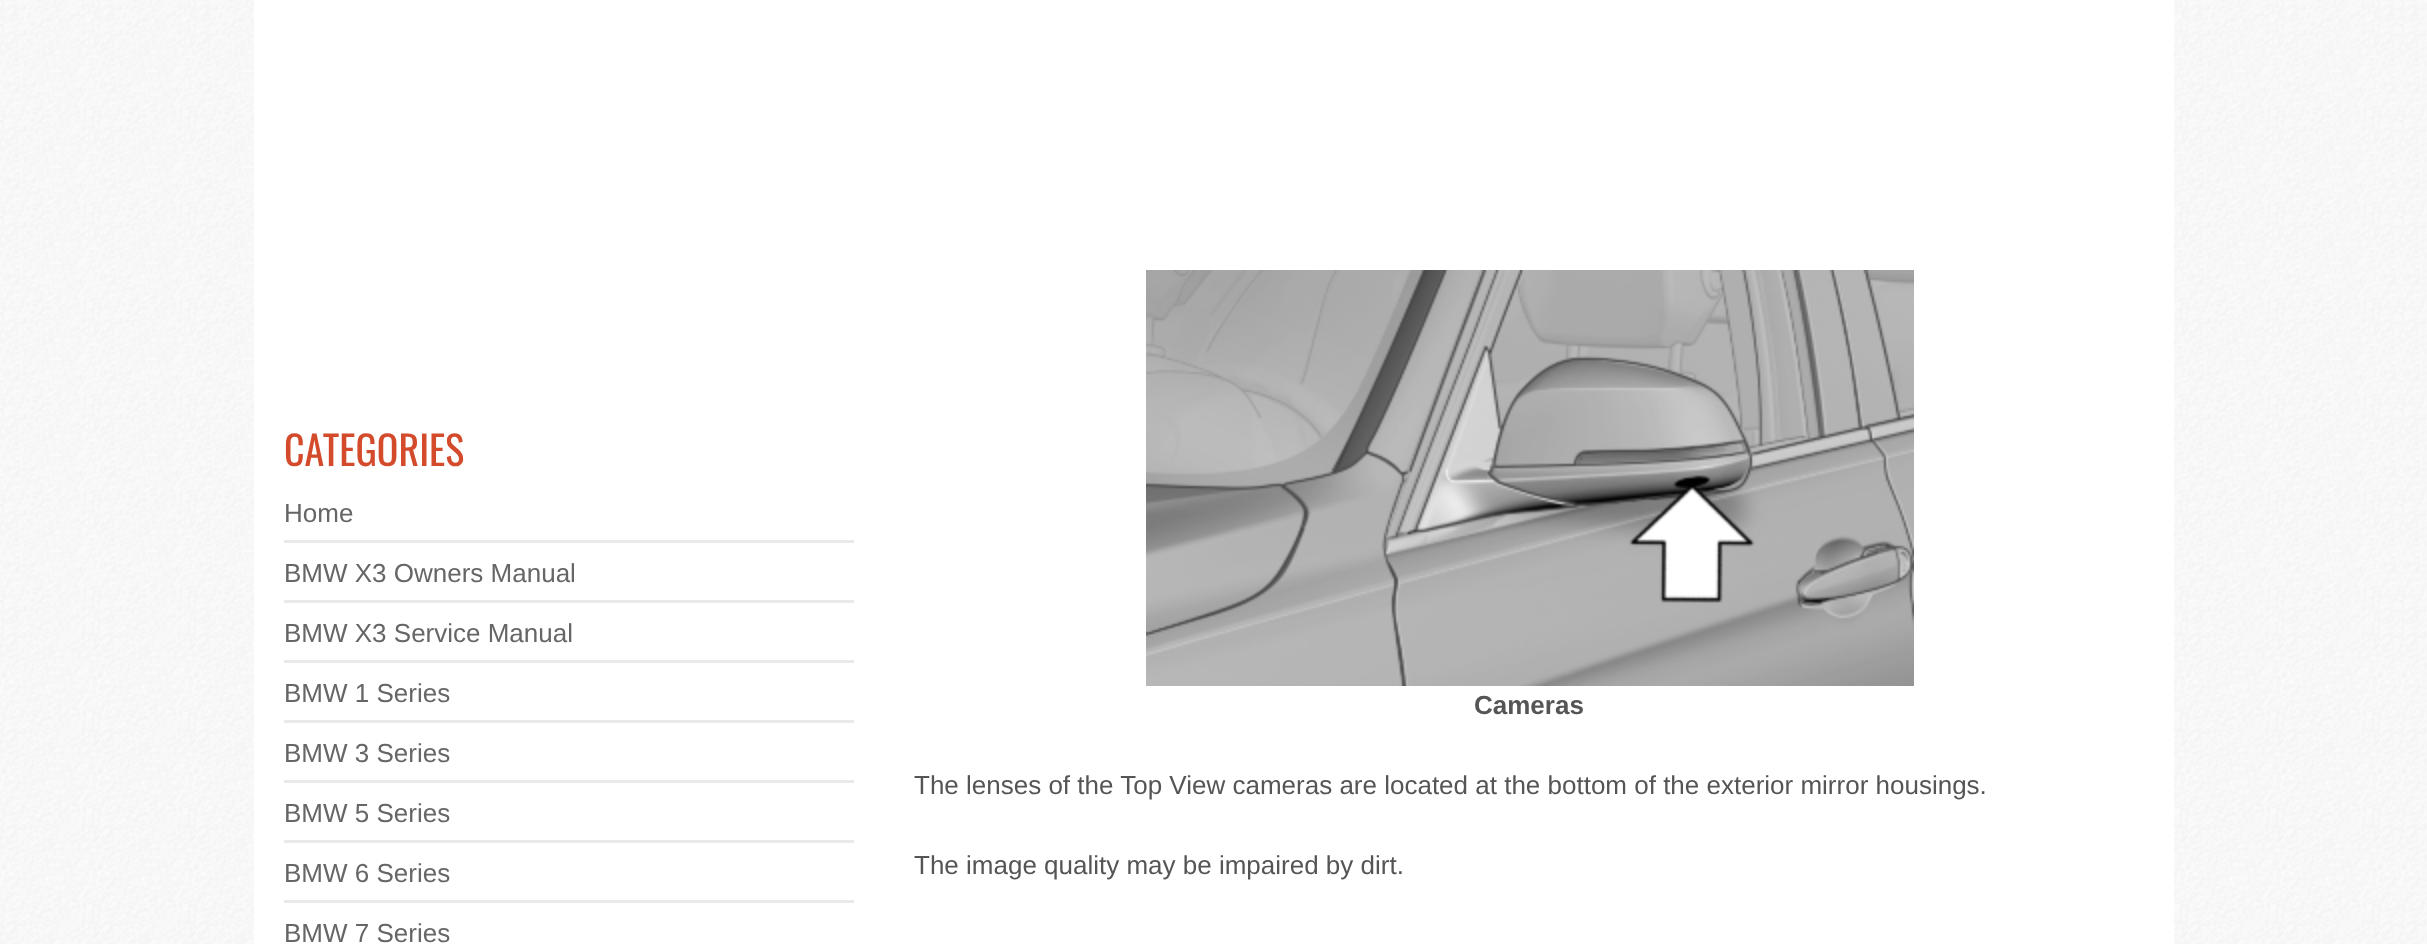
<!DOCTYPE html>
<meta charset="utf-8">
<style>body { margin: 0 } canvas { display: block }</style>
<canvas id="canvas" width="2427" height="944"></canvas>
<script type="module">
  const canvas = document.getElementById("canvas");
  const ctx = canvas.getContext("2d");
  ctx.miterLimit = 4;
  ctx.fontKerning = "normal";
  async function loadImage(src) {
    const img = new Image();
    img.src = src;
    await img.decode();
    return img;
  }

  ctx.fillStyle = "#ffffff";
  ctx.fillRect(0, 0, 2427, 944);
  ctx.drawImage(await loadImage("img1.png"), 0, 0, 2427, 944);
  ctx.fillRect(254, 0, 1920, 944);
  ctx.font = "40px Oswald";
  ctx.fillStyle = "#d44b2c";
  ctx.fillText("CATEGORIES", 284, 466);
  ctx.fillStyle = "#eaeaea";
  ctx.fillRect(284, 540, 570, 3);
  ctx.font = "26px Liberation Sans";
  ctx.fillStyle = "#666666";
  ctx.fillText("Home", 284, 522);
  ctx.fillStyle = "#eaeaea";
  ctx.fillRect(284, 600, 570, 3);
  ctx.fillStyle = "#666666";
  ctx.fillText("BMW X3 Owners Manual", 284, 582);
  ctx.fillStyle = "#eaeaea";
  ctx.fillRect(284, 660, 570, 3);
  ctx.fillStyle = "#666666";
  ctx.fillText("BMW X3 Service Manual", 284, 642);
  ctx.fillStyle = "#eaeaea";
  ctx.fillRect(284, 720, 570, 3);
  ctx.fillStyle = "#666666";
  ctx.fillText("BMW 1 Series", 284, 702);
  ctx.fillStyle = "#eaeaea";
  ctx.fillRect(284, 780, 570, 3);
  ctx.fillStyle = "#666666";
  ctx.fillText("BMW 3 Series", 284, 762);
  ctx.fillStyle = "#eaeaea";
  ctx.fillRect(284, 840, 570, 3);
  ctx.fillStyle = "#666666";
  ctx.fillText("BMW 5 Series", 284, 822);
  ctx.fillStyle = "#eaeaea";
  ctx.fillRect(284, 900, 570, 3);
  ctx.fillStyle = "#666666";
  ctx.fillText("BMW 6 Series", 284, 882);
  ctx.fillText("BMW 7 Series", 284, 942);
  ctx.drawImage(await loadImage("img2.png"), 1146, 270, 768, 416);
  ctx.font = "bold 26px Liberation Sans";
  ctx.fillStyle = "#555555";
  ctx.fillText("Cameras", 1474, 714);
  ctx.font = "26px Liberation Sans";
  ctx.fillText("The lenses of the Top View cameras are located at the bottom of the exterior mirror housings.", 914, 794);
  ctx.fillText("The image quality may be impaired by dirt.", 914, 874);
</script>
